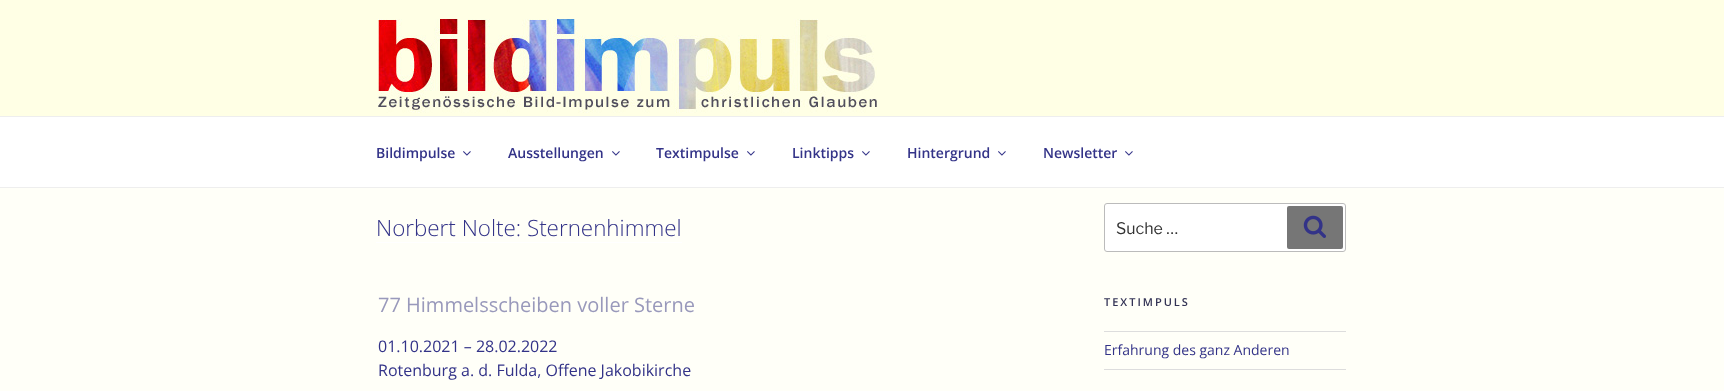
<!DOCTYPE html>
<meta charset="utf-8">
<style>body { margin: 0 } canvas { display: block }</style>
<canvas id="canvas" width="1724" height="391"></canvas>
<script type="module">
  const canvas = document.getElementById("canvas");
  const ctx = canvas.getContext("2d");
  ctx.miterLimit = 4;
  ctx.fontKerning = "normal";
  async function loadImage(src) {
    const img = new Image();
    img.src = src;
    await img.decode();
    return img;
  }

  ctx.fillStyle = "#ffffe5";
  ctx.fillRect(0, 0, 1724, 391);
  ctx.drawImage(await loadImage("img1.png"), 378, 19, 500, 94);
  ctx.fillStyle = "#ffffff";
  ctx.fillRect(0, 117, 1724, 70);
  ctx.fillStyle = "#eeeeee";
  ctx.fillRect(0, 116, 1724, 1);
  ctx.fillRect(0, 187, 1724, 1);
  ctx.font = "600 14px Open Sans";
  ctx.fillStyle = "#333388";
  ctx.fillText("Bildimpulse", 376, 158);
  ctx.drawImage(await loadImage("img2.png"), 463, 151, 8, 5);
  ctx.fillText("Ausstellungen", 508, 158);
  ctx.drawImage(await loadImage("img2.png"), 612, 151, 8, 5);
  ctx.fillText("Textimpulse", 656, 158);
  ctx.drawImage(await loadImage("img2.png"), 747, 151, 8, 5);
  ctx.fillText("Linktipps", 792, 158);
  ctx.drawImage(await loadImage("img2.png"), 862, 151, 8, 5);
  ctx.fillText("Hintergrund", 907, 158);
  ctx.drawImage(await loadImage("img2.png"), 998, 151, 8, 5);
  ctx.fillText("Newsletter", 1043, 158);
  ctx.drawImage(await loadImage("img2.png"), 1125, 151, 8, 5);
  ctx.fillStyle = "#fffff8";
  ctx.fillRect(0, 188, 1724, 203);
  ctx.font = "300 22.4px Open Sans";
  ctx.fillStyle = "#333388";
  ctx.fillText("Norbert Nolte: Sternenhimmel", 376, 236);
  ctx.fillStyle = "#ffffff";
  ctx.fillRect(376, 242, 306, 1);
  ctx.font = "20px Open Sans";
  ctx.fillStyle = "#9999bb";
  ctx.fillText("77 Himmelsscheiben voller Sterne", 378, 312);
  ctx.font = "16px Open Sans";
  ctx.fillStyle = "#333388";
  ctx.fillText("01.10.2021 – 28.02.2022", 378, 352);
  ctx.fillText("Rotenburg a. d. Fulda, Offene Jakobikirche", 378, 376);
  ctx.fillStyle = "#ffffff";
  ctx.beginPath();
  ctx.roundRect(1104.5, 203.5, 241, 48, 2.5);
  ctx.fill();
  ctx.strokeStyle = "#bbbbbb";
  ctx.stroke();
  ctx.font = "16px Libre Franklin";
  ctx.fillStyle = "#333333";
  ctx.fillText("Suche …", 1116, 234);
  ctx.fillStyle = "#767676";
  ctx.beginPath();
  ctx.roundRect(1287, 206, 56, 43, 2);
  ctx.fill();
  ctx.drawImage(await loadImage("img3.png"), 1303, 215, 23, 23);
  ctx.letterSpacing = "2px";
  ctx.font = "600 11px Open Sans";
  ctx.fillStyle = "#333355";
  ctx.fillText("TEXTIMPULS", 1104, 306);
  ctx.fillStyle = "#dddddd";
  ctx.fillRect(1104, 331, 242, 1);
  ctx.fillRect(1104, 369, 242, 1);
  ctx.fillStyle = "#ffffff";
  ctx.fillRect(1104, 358, 186, 1);
  ctx.letterSpacing = "0px";
  ctx.font = "14px Open Sans";
  ctx.fillStyle = "#333388";
  ctx.fillText("Erfahrung des ganz Anderen", 1104, 355);
</script>
